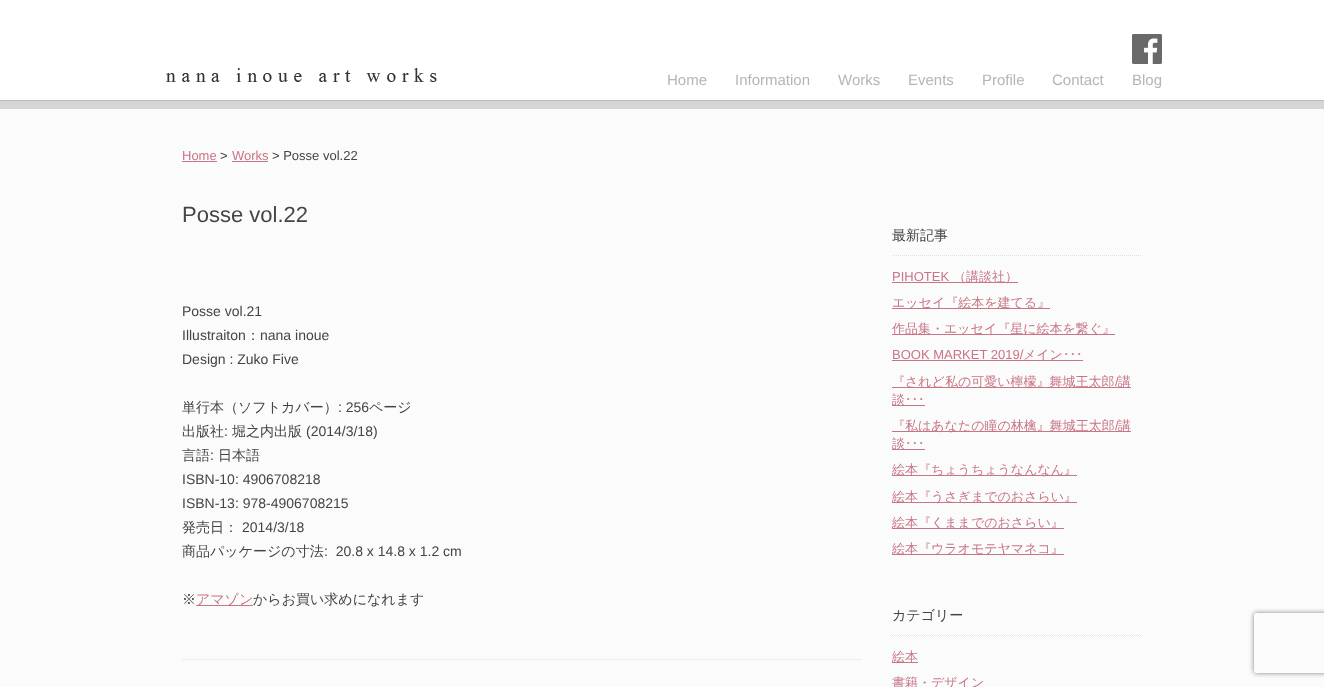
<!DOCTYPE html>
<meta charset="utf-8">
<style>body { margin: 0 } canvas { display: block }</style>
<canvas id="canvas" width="1324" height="687"></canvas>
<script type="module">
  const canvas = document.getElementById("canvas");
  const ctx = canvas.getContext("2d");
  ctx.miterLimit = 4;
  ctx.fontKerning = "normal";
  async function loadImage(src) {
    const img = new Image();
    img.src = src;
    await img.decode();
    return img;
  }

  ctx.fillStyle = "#ffffff";
  ctx.fillRect(0, 0, 1324, 687);
  ctx.drawImage(await loadImage("img1.png"), 1132, 34, 30, 30);
  ctx.drawImage(await loadImage("img2.png"), 166, 68, 271, 14);
  ctx.fillStyle = "#d5d5d6";
  ctx.fillRect(0, 101, 1324, 8);
  ctx.fillStyle = "#bbbbbb";
  ctx.fillRect(0, 100, 1324, 1);
  ctx.font = "15px Liberation Sans";
  ctx.fillStyle = "#b5b5b6";
  ctx.fillText("Home", 667, 85);
  ctx.fillText("Information", 735, 85);
  ctx.fillText("Works", 838, 85);
  ctx.fillText("Events", 908, 85);
  ctx.fillText("Profile", 982, 85);
  ctx.fillText("Contact", 1052, 85);
  ctx.fillText("Blog", 1132, 85);
  ctx.drawImage(await loadImage("img3.png"), 0, 109, 1324, 578);
  ctx.font = "13px Liberation Sans";
  ctx.fillStyle = "#c97586";
  ctx.fillText("Home", 182, 160);
  ctx.fillRect(182, 161, 35, 1);
  ctx.fillStyle = "#444444";
  ctx.fillText(">", 220, 160);
  ctx.fillStyle = "#c97586";
  ctx.fillText("Works", 232, 160);
  ctx.fillRect(232, 161, 36, 1);
  ctx.fillStyle = "#444444";
  ctx.fillText("> Posse vol.22", 272, 160);
  ctx.fillStyle = "#ededed";
  ctx.fillRect(182, 659, 680, 1);
  ctx.font = "22px Liberation Sans";
  ctx.fillStyle = "#444444";
  ctx.fillText("Posse vol.22", 182, 222);
  ctx.font = "14px Liberation Sans";
  ctx.fillText("Posse vol.21", 182, 316);
  ctx.fillText("Illustraiton", 182, 340);
  ctx.font = "500 14px WenQuanYi Zen Hei";
  ctx.fillText("：", 246, 340);
  ctx.font = "14px Liberation Sans";
  ctx.fillText("nana inoue", 260, 340);
  ctx.fillText("Design : Zuko Five", 182, 364);
  ctx.font = "500 14px WenQuanYi Zen Hei";
  ctx.fillText("単行本（ソフトカバー）", 182, 412);
  ctx.font = "14px Liberation Sans";
  ctx.fillText(": 256", 338, 412);
  ctx.font = "500 14px WenQuanYi Zen Hei";
  ctx.fillText("ページ", 369, 412);
  ctx.fillText("出版社", 182, 436);
  ctx.font = "14px Liberation Sans";
  ctx.fillText(":", 224, 436);
  ctx.font = "500 14px WenQuanYi Zen Hei";
  ctx.fillText("堀之内出版", 232, 436);
  ctx.font = "14px Liberation Sans";
  ctx.fillText("(2014/3/18)", 306, 436);
  ctx.font = "500 14px WenQuanYi Zen Hei";
  ctx.fillText("言語", 182, 460);
  ctx.font = "14px Liberation Sans";
  ctx.fillText(":", 210, 460);
  ctx.font = "500 14px WenQuanYi Zen Hei";
  ctx.fillText("日本語", 218, 460);
  ctx.font = "14px Liberation Sans";
  ctx.fillText("ISBN-10: 4906708218", 182, 484);
  ctx.fillText("ISBN-13: 978-4906708215", 182, 508);
  ctx.font = "500 14px WenQuanYi Zen Hei";
  ctx.fillText("発売日：", 182, 532);
  ctx.font = "14px Liberation Sans";
  ctx.fillText("2014/3/18", 242, 532);
  ctx.font = "500 14px WenQuanYi Zen Hei";
  ctx.fillText("商品パッケージの寸法", 182, 556);
  ctx.font = "14px Liberation Sans";
  ctx.fillText(":  20.8 x 14.8 x 1.2 cm", 324, 556);
  ctx.font = "500 14px WenQuanYi Zen Hei";
  ctx.fillText("※", 182, 604);
  ctx.fillStyle = "#c97586";
  ctx.fillRect(196, 605, 57, 1);
  ctx.fillText("アマゾン", 196, 604);
  ctx.fillStyle = "#444444";
  ctx.fillText("からお買い求めになれます", 253, 604);
  ctx.fillText("最新記事", 892, 240);
  ctx.beginPath();
  ctx.moveTo(892, 255.5);
  ctx.lineTo(1142, 255.5);
  ctx.strokeStyle = "#dcdddd";
  ctx.setLineDash([1, 1]);
  ctx.stroke();
  ctx.font = "13px Liberation Sans";
  ctx.fillStyle = "#c97586";
  ctx.fillText("PIHOTEK", 892, 281);
  ctx.fillRect(892, 282, 126, 1);
  ctx.font = "500 13px WenQuanYi Zen Hei";
  ctx.fillText("（講談社）", 953, 281);
  ctx.fillRect(892, 308, 158, 1);
  ctx.fillText("エッセイ『絵本を建てる』", 892, 307);
  ctx.fillRect(892, 334, 223, 1);
  ctx.fillText("作品集・エッセイ『星に絵本を繋ぐ』", 892, 333);
  ctx.font = "13px Liberation Sans";
  ctx.fillText("BOOK MARKET 2019/", 892, 359);
  ctx.fillRect(892, 360, 191, 1);
  ctx.font = "500 13px WenQuanYi Zen Hei";
  ctx.fillText("メイン", 1023, 359);
  ctx.font = "13px IPAPGothic";
  ctx.fillText("･･･", 1063, 359);
  ctx.fillRect(892, 387, 239, 1);
  ctx.font = "500 13px WenQuanYi Zen Hei";
  ctx.fillText("『されど私の可愛い檸檬』舞城王太郎", 892, 386);
  ctx.font = "13px Liberation Sans";
  ctx.fillText("/", 1115, 386);
  ctx.font = "500 13px WenQuanYi Zen Hei";
  ctx.fillText("講", 1118, 386);
  ctx.fillRect(892, 405, 33, 1);
  ctx.fillText("談", 892, 404);
  ctx.font = "13px IPAPGothic";
  ctx.fillText("･･･", 905, 404);
  ctx.fillRect(892, 431, 239, 1);
  ctx.font = "500 13px WenQuanYi Zen Hei";
  ctx.fillText("『私はあなたの瞳の林檎』舞城王太郎", 892, 430);
  ctx.font = "13px Liberation Sans";
  ctx.fillText("/", 1115, 430);
  ctx.font = "500 13px WenQuanYi Zen Hei";
  ctx.fillText("講", 1118, 430);
  ctx.fillRect(892, 449, 33, 1);
  ctx.fillText("談", 892, 448);
  ctx.font = "13px IPAPGothic";
  ctx.fillText("･･･", 905, 448);
  ctx.fillRect(892, 475, 185, 1);
  ctx.font = "500 13px WenQuanYi Zen Hei";
  ctx.fillText("絵本『ちょうちょうなんなん』", 892, 474);
  ctx.fillRect(892, 502, 185, 1);
  ctx.fillText("絵本『うさぎまでのおさらい』", 892, 501);
  ctx.fillRect(892, 528, 172, 1);
  ctx.fillText("絵本『くままでのおさらい』", 892, 527);
  ctx.fillRect(892, 554, 172, 1);
  ctx.fillText("絵本『ウラオモテヤマネコ』", 892, 553);
  ctx.font = "500 14px WenQuanYi Zen Hei";
  ctx.fillStyle = "#444444";
  ctx.fillText("カテゴリー", 892, 620);
  ctx.beginPath();
  ctx.moveTo(892, 635.5);
  ctx.lineTo(1142, 635.5);
  ctx.stroke();
  ctx.fillStyle = "#c97586";
  ctx.fillRect(892, 662, 26, 1);
  ctx.font = "500 13px WenQuanYi Zen Hei";
  ctx.fillText("絵本", 892, 661);
  ctx.fillText("書籍・デザイン", 892, 687);
  ctx.save();
  ctx.beginPath();
  ctx.moveTo(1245, 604);
  ctx.lineTo(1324, 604);
  ctx.lineTo(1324, 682);
  ctx.lineTo(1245, 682);
  ctx.closePath();
  ctx.moveTo(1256, 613);
  ctx.lineTo(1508, 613);
  ctx.bezierCurveTo(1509, 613, 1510, 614, 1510, 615);
  ctx.lineTo(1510, 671);
  ctx.bezierCurveTo(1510, 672, 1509, 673, 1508, 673);
  ctx.lineTo(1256, 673);
  ctx.bezierCurveTo(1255, 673, 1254, 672, 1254, 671);
  ctx.lineTo(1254, 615);
  ctx.bezierCurveTo(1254, 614, 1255, 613, 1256, 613);
  ctx.closePath();
  ctx.clip("evenodd");
  ctx.fillStyle = "#808080";
  ctx.filter = "blur(2.5px)";
  ctx.beginPath();
  ctx.roundRect(1254, 613, 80, 60, 2);
  ctx.fill();
  ctx.filter = "none";
  ctx.restore();
</script>
